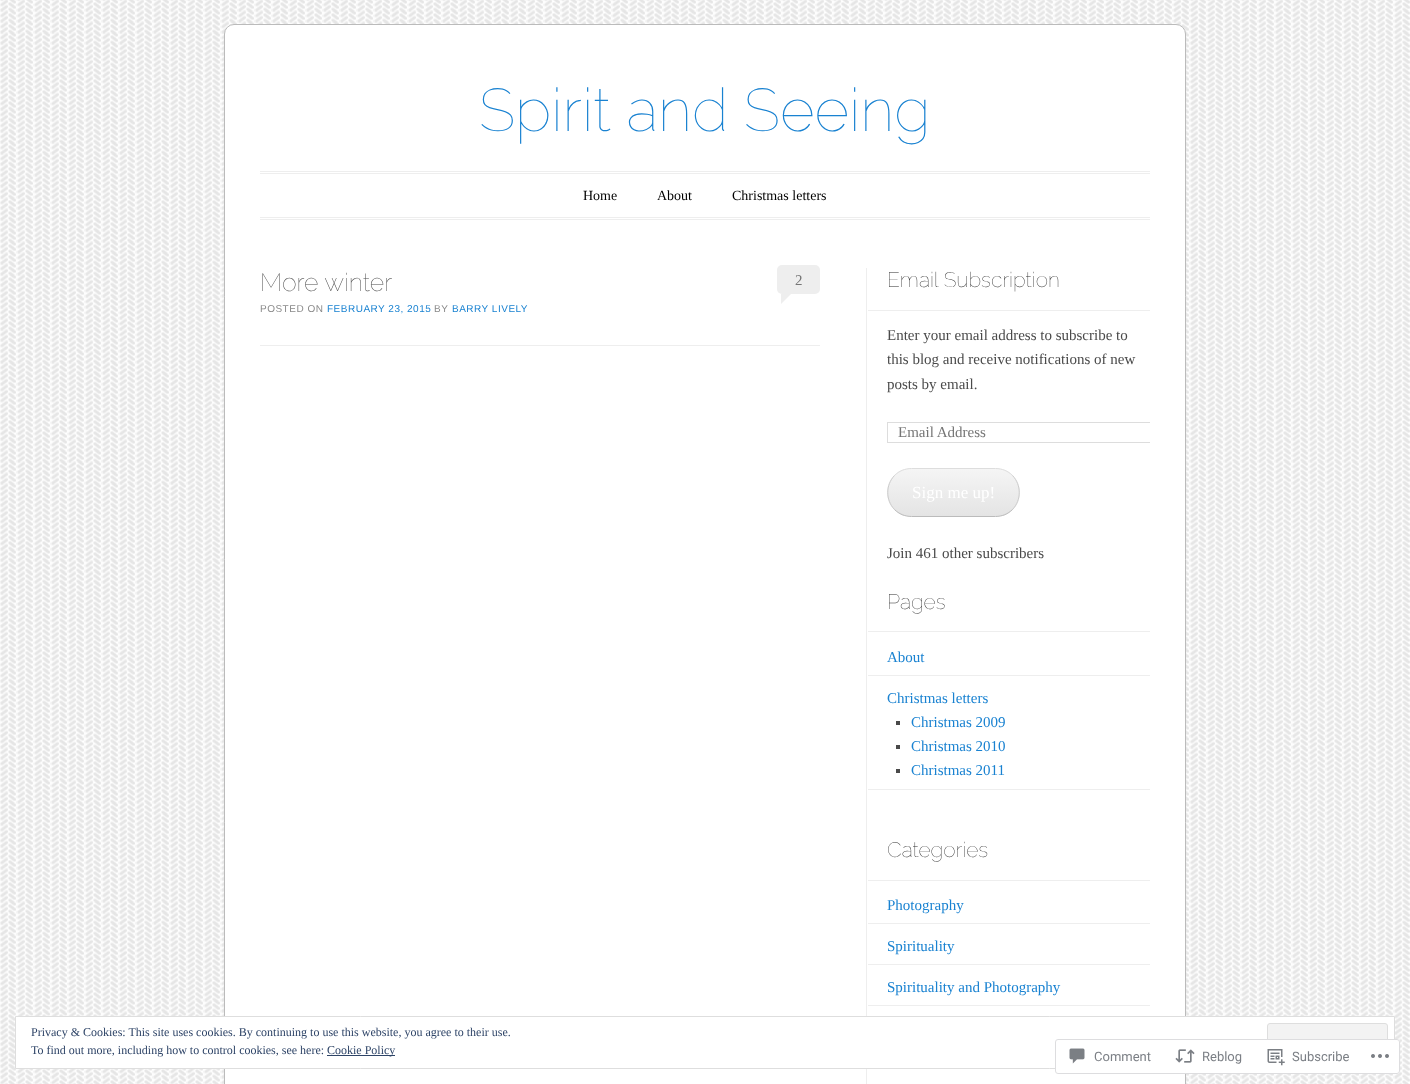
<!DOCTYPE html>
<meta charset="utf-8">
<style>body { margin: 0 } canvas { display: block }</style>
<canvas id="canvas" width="1410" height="1084"></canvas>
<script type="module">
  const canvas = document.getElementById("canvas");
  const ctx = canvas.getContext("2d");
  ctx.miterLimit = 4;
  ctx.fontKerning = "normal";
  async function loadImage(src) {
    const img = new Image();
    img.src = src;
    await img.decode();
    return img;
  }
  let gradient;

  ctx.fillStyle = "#ffffff";
  ctx.fillRect(0, 0, 1410, 1084);
  ctx.drawImage(await loadImage("img1.png"), 0, 0, 1410, 1084);
  ctx.beginPath();
  ctx.roundRect(224.5, 24.5, 961, 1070, 9.5);
  ctx.fill();
  ctx.strokeStyle = "#bbbbbb";
  ctx.stroke();
  ctx.font = "100 60px Raleway";
  ctx.fillStyle = "#1982d1";
  ctx.fillText("Spirit and Seeing", 479, 131);
  ctx.fillStyle = "#eeeeee";
  ctx.fillRect(260, 171, 890, 1);
  ctx.fillRect(260, 173, 890, 1);
  ctx.fillRect(260, 217, 890, 1);
  ctx.fillRect(260, 219, 890, 1);
  ctx.font = "14px Liberation Serif";
  ctx.fillStyle = "#000000";
  ctx.fillText("Home", 583, 200);
  ctx.fillText("About", 657, 200);
  ctx.fillText("Christmas letters", 732, 200);
  ctx.font = "100 25px Raleway";
  ctx.fillStyle = "#4a4a4a";
  ctx.fillText("More winter", 260, 291);
  ctx.fillStyle = "#eeeeee";
  ctx.beginPath();
  ctx.roundRect(777, 265, 43, 29, 5);
  ctx.fill();
  ctx.font = "15px Liberation Serif";
  ctx.fillStyle = "#757575";
  ctx.fillText("2", 795, 285);
  ctx.fillStyle = "#eeeeee";
  ctx.beginPath();
  ctx.moveTo(781, 304);
  ctx.lineTo(781, 294);
  ctx.lineTo(791, 294);
  ctx.closePath();
  ctx.fill();
  ctx.fillRect(260, 345, 560, 1);
  ctx.letterSpacing = "0.5px";
  ctx.font = "10px Liberation Sans";
  ctx.fillStyle = "#8a8a8a";
  ctx.fillText("POSTED ON", 260, 312);
  ctx.fillStyle = "#1982d1";
  ctx.fillText("FEBRUARY 23, 2015", 327, 312);
  ctx.fillStyle = "#8a8a8a";
  ctx.fillText("BY", 434, 312);
  ctx.fillStyle = "#1982d1";
  ctx.fillText("BARRY LIVELY", 452, 312);
  ctx.fillStyle = "#eeeeee";
  ctx.fillRect(866, 268, 1, 816);
  ctx.fillRect(868, 310, 282, 1);
  ctx.letterSpacing = "0px";
  ctx.font = "100 21px Raleway";
  ctx.fillStyle = "#2a2a2a";
  ctx.fillText("Email Subscription", 887, 287);
  ctx.font = "15px Liberation Serif";
  ctx.fillStyle = "#4a4a4a";
  ctx.fillText("Enter your email address to subscribe to", 887, 340);
  ctx.fillText("this blog and receive notifications of new", 887, 364);
  ctx.fillText("posts by email.", 887, 389);
  ctx.save();
  ctx.beginPath();
  ctx.rect(867, 268, 283, 297);
  ctx.clip();
  ctx.strokeStyle = "#dddddd";
  ctx.strokeRect(887.5, 422.5, 271, 20);
  ctx.restore();
  ctx.fillStyle = "#757575";
  ctx.fillText("Email Address", 898, 437);
  ctx.save();
  ctx.beginPath();
  ctx.roundRect(887, 468, 133, 49, 24.5);
  ctx.clip();
  gradient = ctx.createLinearGradient(954, 469, 954, 516);
  gradient.addColorStop(0, "#f5f5f5");
  gradient.addColorStop(1, "#e4e4e4");
  ctx.fillStyle = gradient;
  ctx.fillRect(887, 469, 133, 47);
  ctx.restore();
  ctx.beginPath();
  ctx.moveTo(894.5, 475.5);
  ctx.bezierCurveTo(899, 471, 905, 468.5, 911.5, 468.5);
  ctx.lineTo(995.5, 468.5);
  ctx.bezierCurveTo(1002, 468.5, 1008, 471, 1012.5, 475.5);
  ctx.strokeStyle = "#dddddd";
  ctx.stroke();
  ctx.beginPath();
  ctx.moveTo(1012.5, 475.5);
  ctx.bezierCurveTo(1021.5, 485, 1021.5, 500, 1012.5, 509.5);
  ctx.strokeStyle = "#cccccc";
  ctx.stroke();
  ctx.beginPath();
  ctx.moveTo(1012.5, 509.5);
  ctx.bezierCurveTo(1008, 514, 1002, 516.5, 995.5, 516.5);
  ctx.lineTo(911.5, 516.5);
  ctx.bezierCurveTo(905, 516.5, 899, 514, 894.5, 509.5);
  ctx.strokeStyle = "#bbbbbb";
  ctx.stroke();
  ctx.beginPath();
  ctx.moveTo(894.5, 509.5);
  ctx.bezierCurveTo(885.5, 500, 885.5, 485, 894.5, 475.5);
  ctx.strokeStyle = "#cccccc";
  ctx.stroke();
  ctx.font = "17px Liberation Serif";
  ctx.fillStyle = "#ffffff";
  ctx.fillText("Sign me up!", 912, 498);
  ctx.font = "15px Liberation Serif";
  ctx.fillStyle = "#4a4a4a";
  ctx.fillText("Join 461 other subscribers", 887, 558);
  ctx.fillStyle = "#eeeeee";
  ctx.fillRect(868, 631, 282, 1);
  ctx.font = "100 21px Raleway";
  ctx.fillStyle = "#2a2a2a";
  ctx.fillText("Pages", 887, 609);
  ctx.fillStyle = "#eeeeee";
  ctx.fillRect(868, 675, 282, 1);
  ctx.font = "15px Liberation Serif";
  ctx.fillStyle = "#1982d1";
  ctx.fillText("About", 887, 662);
  ctx.fillStyle = "#eeeeee";
  ctx.fillRect(868, 789, 282, 1);
  ctx.fillStyle = "#1982d1";
  ctx.fillText("Christmas letters", 887, 703);
  ctx.fillStyle = "#4a4a4a";
  ctx.fillRect(896, 721, 4, 4);
  ctx.fillStyle = "#1982d1";
  ctx.fillText("Christmas 2009", 911, 727);
  ctx.fillStyle = "#4a4a4a";
  ctx.fillRect(896, 745, 4, 4);
  ctx.fillStyle = "#1982d1";
  ctx.fillText("Christmas 2010", 911, 751);
  ctx.fillStyle = "#4a4a4a";
  ctx.fillRect(896, 769, 4, 4);
  ctx.fillStyle = "#1982d1";
  ctx.fillText("Christmas 2011", 911, 775);
  ctx.fillStyle = "#eeeeee";
  ctx.fillRect(868, 880, 282, 1);
  ctx.font = "100 21px Raleway";
  ctx.fillStyle = "#2a2a2a";
  ctx.fillText("Categories", 887, 857);
  ctx.fillStyle = "#eeeeee";
  ctx.fillRect(868, 923, 282, 1);
  ctx.font = "15px Liberation Serif";
  ctx.fillStyle = "#1982d1";
  ctx.fillText("Photography", 887, 910);
  ctx.fillStyle = "#eeeeee";
  ctx.fillRect(868, 964, 282, 1);
  ctx.fillStyle = "#1982d1";
  ctx.fillText("Spirituality", 887, 951);
  ctx.fillStyle = "#eeeeee";
  ctx.fillRect(868, 1005, 282, 1);
  ctx.fillStyle = "#1982d1";
  ctx.fillText("Spirituality and Photography", 887, 992);
  ctx.fillStyle = "#ffffff";
  ctx.beginPath();
  ctx.rect(15.5, 1016.5, 1379, 52);
  ctx.fill();
  ctx.strokeStyle = "#dedede";
  ctx.stroke();
  ctx.font = "12px Liberation Serif";
  ctx.fillStyle = "#2e4467";
  ctx.fillText("Privacy & Cookies: This site uses cookies. By continuing to use this website, you agree to their use.", 31, 1036);
  ctx.fillStyle = "#f3f3f3";
  ctx.beginPath();
  ctx.roundRect(1267.5, 1023.5, 120, 38, 2.5);
  ctx.fill();
  ctx.stroke();
  ctx.fillStyle = "#2e4467";
  ctx.fillText("To find out more, including how to control cookies, see here:", 31, 1054);
  ctx.fillRect(327, 1055, 68, 1);
  ctx.fillText("Cookie Policy", 327, 1054);
  ctx.fillStyle = "rgba(255, 255, 255, 0.98)";
  ctx.beginPath();
  ctx.roundRect(1055, 1039, 345, 35, 3);
  ctx.fill();
  ctx.beginPath();
  ctx.roundRect(1055.5, 1039.5, 344, 34, 2.5);
  ctx.strokeStyle = "rgba(220, 220, 222, 0.98)";
  ctx.stroke();
  ctx.drawImage(await loadImage("img2.png"), 1069, 1048, 16, 16);
  ctx.font = "13px Roboto";
  ctx.fillStyle = "#7b7f85";
  ctx.fillText("Comment", 1094, 1061);
  ctx.drawImage(await loadImage("img3.png"), 1175, 1049, 20, 14);
  ctx.fillText("Reblog", 1202, 1061);
  ctx.drawImage(await loadImage("img4.png"), 1267, 1049, 18, 17);
  ctx.fillText("Subscribe", 1292, 1061);
  ctx.drawImage(await loadImage("img5.png"), 1371, 1054, 18, 4);
</script>
